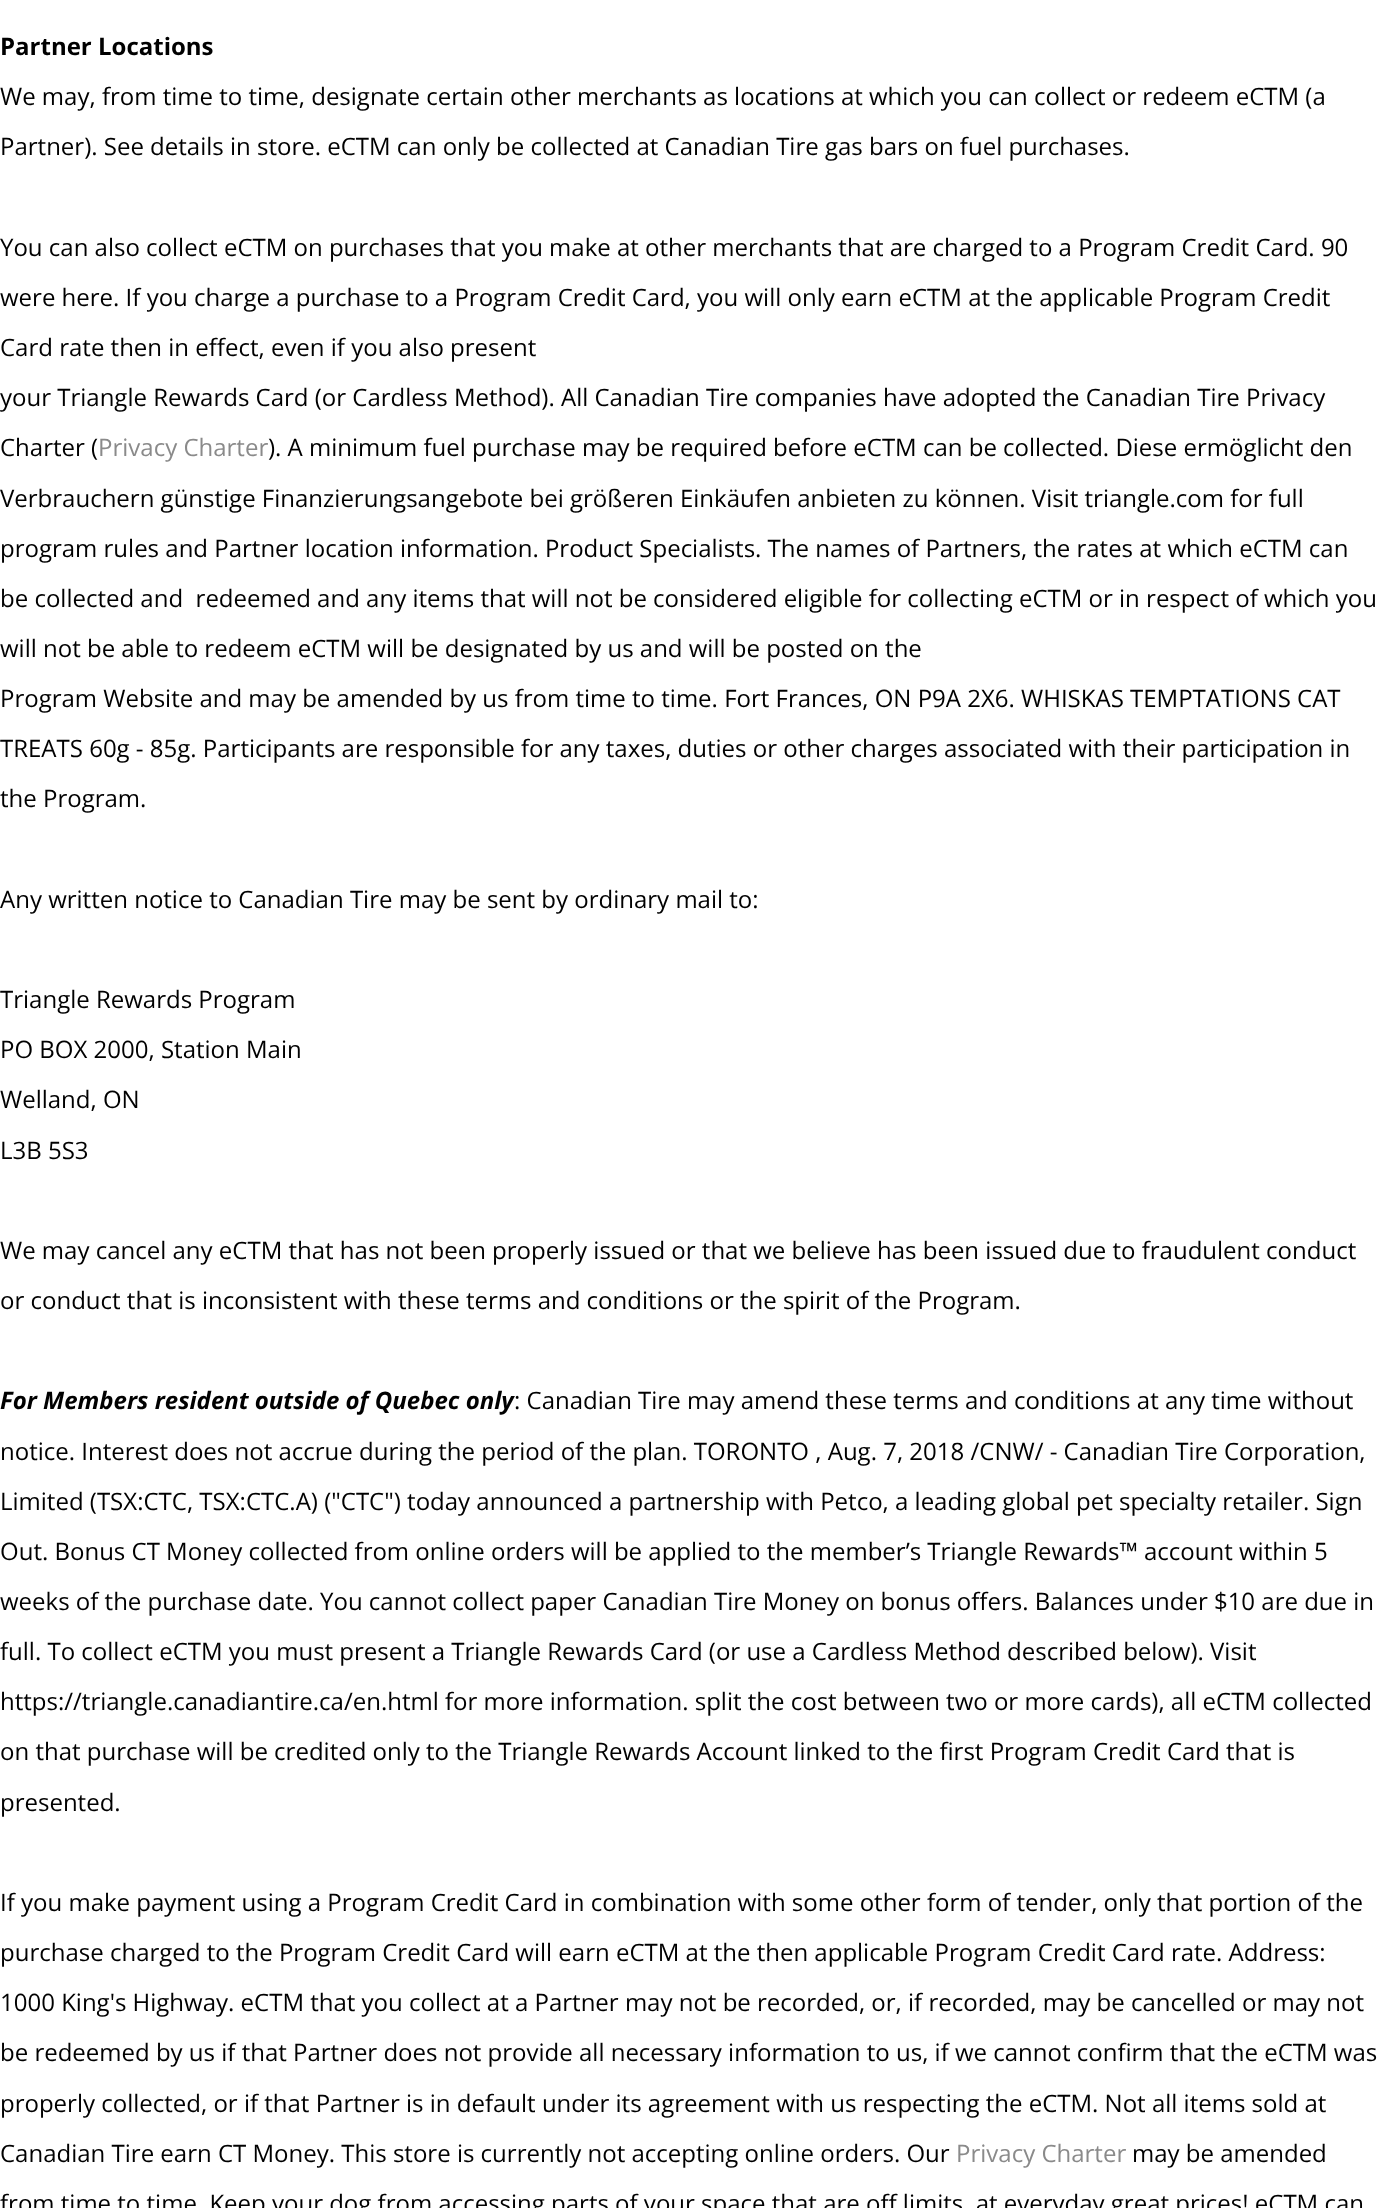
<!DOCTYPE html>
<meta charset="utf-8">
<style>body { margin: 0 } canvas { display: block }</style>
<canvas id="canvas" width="1380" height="2208"></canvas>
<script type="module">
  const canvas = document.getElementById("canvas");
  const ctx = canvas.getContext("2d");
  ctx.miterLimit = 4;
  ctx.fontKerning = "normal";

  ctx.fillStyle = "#ffffff";
  ctx.fillRect(0, 0, 1380, 2208);
  ctx.font = "bold 24px Open Sans";
  ctx.fillStyle = "#000000";
  ctx.fillText("Partner Locations", 0, 55);
  ctx.font = "24px Open Sans";
  ctx.fillText("We may, from time to time, designate certain other merchants as locations at which you can collect or redeem eCTM (a", 0, 105);
  ctx.fillText("Partner). See details in store. eCTM can only be collected at Canadian Tire gas bars on fuel purchases.", 0, 155);
  ctx.fillText("You can also collect eCTM on purchases that you make at other merchants that are charged to a Program Credit Card. 90", 0, 256);
  ctx.fillText("were here. If you charge a purchase to a Program Credit Card, you will only earn eCTM at the applicable Program Credit", 0, 306);
  ctx.fillText("Card rate then in effect, even if you also present", 0, 356);
  ctx.fillText("your Triangle Rewards Card (or Cardless Method). All Canadian Tire companies have adopted the Canadian Tire Privacy", 0, 406);
  ctx.fillText("Charter (", 0, 456);
  ctx.fillStyle = "#8a8a8a";
  ctx.fillText("Privacy Charter", 98, 456);
  ctx.fillStyle = "#000000";
  ctx.fillText("). A minimum fuel purchase may be required before eCTM can be collected. Diese ermöglicht den", 268, 456);
  ctx.fillText("Verbrauchern günstige Finanzierungsangebote bei größeren Einkäufen anbieten zu können. Visit triangle.com for full", 0, 507);
  ctx.fillText("program rules and Partner location information. Product Specialists. The names of Partners, the rates at which eCTM can", 0, 557);
  ctx.fillText("be collected and  redeemed and any items that will not be considered eligible for collecting eCTM or in respect of which you", 0, 607);
  ctx.fillText("will not be able to redeem eCTM will be designated by us and will be posted on the", 0, 657);
  ctx.fillText("Program Website and may be amended by us from time to time. Fort Frances, ON P9A 2X6. WHISKAS TEMPTATIONS CAT", 0, 707);
  ctx.fillText("TREATS 60g - 85g. Participants are responsible for any taxes, duties or other charges associated with their participation in", 0, 757);
  ctx.fillText("the Program.", 0, 807);
  ctx.fillText("Any written notice to Canadian Tire may be sent by ordinary mail to:", 0, 908);
  ctx.fillText("Triangle Rewards Program", 0, 1008);
  ctx.fillText("PO BOX 2000, Station Main", 0, 1058);
  ctx.fillText("Welland, ON", 0, 1108);
  ctx.fillText("L3B 5S3", 0, 1159);
  ctx.fillText("We may cancel any eCTM that has not been properly issued or that we believe has been issued due to fraudulent conduct", 0, 1259);
  ctx.fillText("or conduct that is inconsistent with these terms and conditions or the spirit of the Program.", 0, 1309);
  ctx.font = "italic bold 24px Open Sans";
  ctx.fillText("For Members resident outside of Quebec only", 0, 1409);
  ctx.font = "24px Open Sans";
  ctx.fillText(": Canadian Tire may amend these terms and conditions at any time without", 514, 1409);
  ctx.fillText("notice. Interest does not accrue during the period of the plan. TORONTO , Aug. 7, 2018 /CNW/ - Canadian Tire Corporation,", 0, 1460);
  ctx.fillText("Limited (TSX:CTC, TSX:CTC.A) (\"CTC\") today announced a partnership with Petco, a leading global pet specialty retailer. Sign", 0, 1510);
  ctx.fillText("Out. Bonus CT Money collected from online orders will be applied to the member’s Triangle Rewards™ account within 5", 0, 1560);
  ctx.fillText("weeks of the purchase date. You cannot collect paper Canadian Tire Money on bonus offers. Balances under $10 are due in", 0, 1610);
  ctx.fillText("full. To collect eCTM you must present a Triangle Rewards Card (or use a Cardless Method described below). Visit", 0, 1660);
  ctx.fillText("https://triangle.canadiantire.ca/en.html for more information. split the cost between two or more cards), all eCTM collected", 0, 1710);
  ctx.fillText("on that purchase will be credited only to the Triangle Rewards Account linked to the first Program Credit Card that is", 0, 1760);
  ctx.fillText("presented.", 0, 1811);
  ctx.fillText("If you make payment using a Program Credit Card in combination with some other form of tender, only that portion of the", 0, 1911);
  ctx.fillText("purchase charged to the Program Credit Card will earn eCTM at the then applicable Program Credit Card rate. Address:", 0, 1961);
  ctx.fillText("1000 King's Highway. eCTM that you collect at a Partner may not be recorded, or, if recorded, may be cancelled or may not", 0, 2011);
  ctx.fillText("be redeemed by us if that Partner does not provide all necessary information to us, if we cannot confirm that the eCTM was", 0, 2061);
  ctx.fillText("properly collected, or if that Partner is in default under its agreement with us respecting the eCTM. Not all items sold at", 0, 2112);
  ctx.fillText("Canadian Tire earn CT Money. This store is currently not accepting online orders. Our", 0, 2162);
  ctx.fillStyle = "#8a8a8a";
  ctx.fillText("Privacy Charter", 956, 2162);
  ctx.fillStyle = "#000000";
  ctx.fillText("may be amended", 1132, 2162);
  ctx.fillText("from time to time. Keep your dog from accessing parts of your space that are off limits, at everyday great prices! eCTM can", 0, 2212);
</script>
